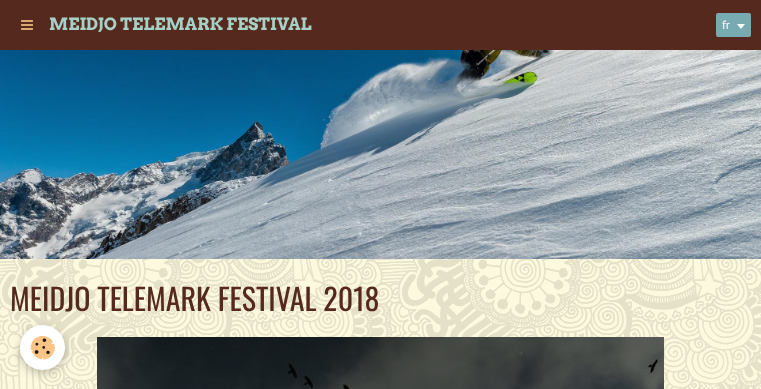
<!DOCTYPE html>
<meta charset="utf-8">
<style>body { margin: 0 } canvas { display: block }</style>
<canvas id="canvas" width="761" height="389"></canvas>
<script type="module">
  const canvas = document.getElementById("canvas");
  const ctx = canvas.getContext("2d");
  ctx.miterLimit = 4;
  ctx.fontKerning = "normal";
  async function loadImage(src) {
    const img = new Image();
    img.src = src;
    await img.decode();
    return img;
  }

  ctx.fillStyle = "#fffbe0";
  ctx.fillRect(0, 0, 761, 389);
  ctx.drawImage(await loadImage("img1.png"), 0, 259, 761, 130);
  ctx.fillStyle = "#55291e";
  ctx.fillRect(0, 0, 761, 50);
  ctx.drawImage(await loadImage("img2.png"), 21, 20, 12, 10);
  ctx.save();
  ctx.beginPath();
  ctx.rect(49, 13, 263, 24);
  ctx.clip();
  ctx.font = "bold 16.75px Arvo";
  ctx.fillStyle = "#a7d1c7";
  ctx.fillText("MEIDJO TELEMARK FESTIVAL", 49, 30);
  ctx.restore();
  ctx.fillStyle = "#77aab1";
  ctx.beginPath();
  ctx.roundRect(716, 13, 35, 24, 2);
  ctx.fill();
  ctx.font = "12px PT Sans";
  ctx.fillStyle = "#ffffff";
  ctx.fillText("fr", 722, 29);
  ctx.beginPath();
  ctx.moveTo(737, 24);
  ctx.lineTo(745, 24);
  ctx.lineTo(741, 29);
  ctx.closePath();
  ctx.fill();
  ctx.drawImage(await loadImage("img3.png"), 0, 50, 761, 209);
  ctx.font = "30px Oswald";
  ctx.fillStyle = "#55291e";
  ctx.fillText("MEIDJO TELEMARK FESTIVAL 2018", 10, 311);
  ctx.drawImage(await loadImage("img4.png"), 97, 337, 567, 52);
  ctx.fillStyle = "rgba(0, 0, 0, 0.24)";
  ctx.filter = "blur(5px)";
  ctx.beginPath();
  ctx.roundRect(20, 328, 45, 45, 22.5);
  ctx.fill();
  ctx.filter = "none";
  ctx.fillStyle = "#ffffff";
  ctx.beginPath();
  ctx.arc(42.5, 347.5, 22.5, 0, Math.PI * 2);
  ctx.fill();
  ctx.drawImage(await loadImage("img5.png"), 30, 335, 25, 25);
</script>
